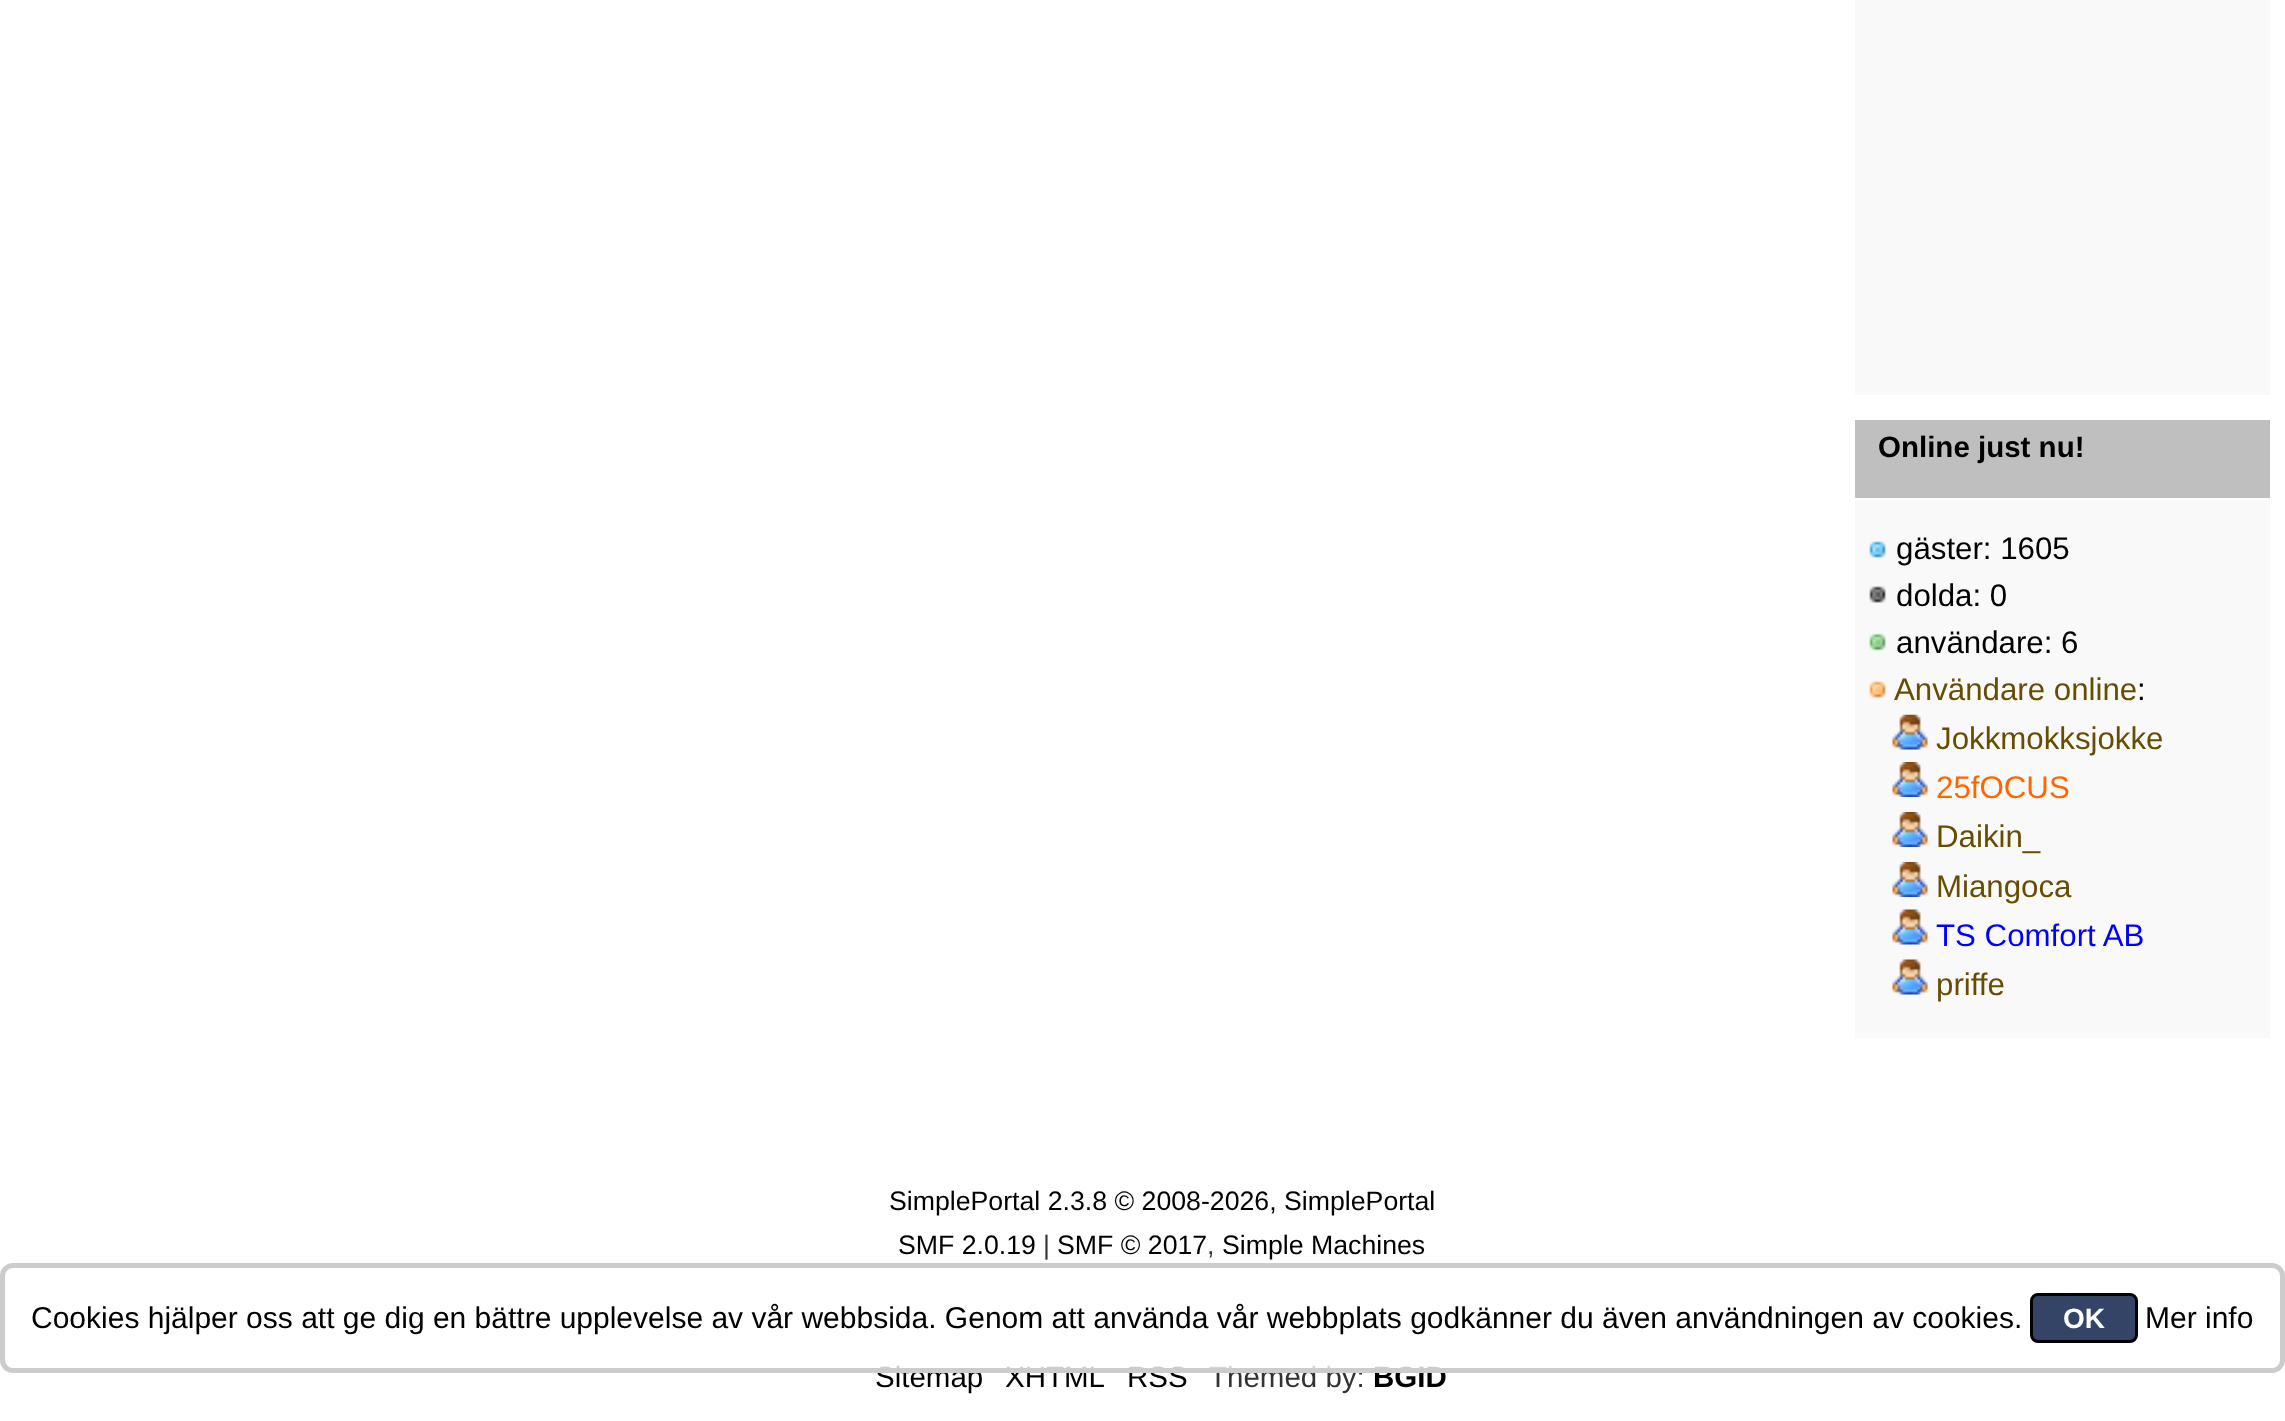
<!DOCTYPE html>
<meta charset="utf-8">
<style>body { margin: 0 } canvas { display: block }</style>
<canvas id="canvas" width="2285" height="1421"></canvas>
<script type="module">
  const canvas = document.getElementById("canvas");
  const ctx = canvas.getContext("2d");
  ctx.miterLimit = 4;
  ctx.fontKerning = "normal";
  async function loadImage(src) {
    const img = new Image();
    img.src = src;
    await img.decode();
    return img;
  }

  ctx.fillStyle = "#ffffff";
  ctx.fillRect(0, 0, 2285, 1421);
  ctx.fillStyle = "#f9f9f9";
  ctx.fillRect(1855, 0, 415, 395);
  ctx.fillStyle = "#bfbfbf";
  ctx.fillRect(1855, 420, 415, 78);
  ctx.font = "bold 29.5px Liberation Sans";
  ctx.fillStyle = "#000000";
  ctx.fillText("Online just nu!", 1878, 457);
  ctx.fillStyle = "#f9f9f9";
  ctx.fillRect(1855, 500, 415, 538);
  ctx.drawImage(await loadImage("img1.png"), 1869, 541, 17, 17);
  ctx.font = "31.25px Liberation Sans";
  ctx.fillStyle = "#000000";
  ctx.fillText("gäster: 1605", 1896, 559);
  ctx.drawImage(await loadImage("img2.png"), 1869, 586, 17, 17);
  ctx.fillText("dolda: 0", 1896, 606);
  ctx.drawImage(await loadImage("img3.png"), 1869, 633, 17, 18);
  ctx.fillText("användare: 6", 1896, 653);
  ctx.drawImage(await loadImage("img4.png"), 1869, 681, 17, 17);
  ctx.fillStyle = "#664d00";
  ctx.fillText("Användare online", 1894, 700);
  ctx.fillStyle = "#000000";
  ctx.fillText(":", 2137, 700);
  ctx.drawImage(await loadImage("img5.png"), 1892, 714, 36, 36);
  ctx.fillStyle = "#664d00";
  ctx.fillText("Jokkmokksjokke", 1936, 749);
  ctx.drawImage(await loadImage("img6.png"), 1892, 762, 36, 35);
  ctx.fillStyle = "#ff6600";
  ctx.fillText("25fOCUS", 1936, 798);
  ctx.drawImage(await loadImage("img7.png"), 1892, 812, 36, 35);
  ctx.fillStyle = "#664d00";
  ctx.fillText("Daikin_", 1936, 847);
  ctx.drawImage(await loadImage("img7.png"), 1892, 862, 36, 35);
  ctx.fillText("Miangoca", 1936, 897);
  ctx.drawImage(await loadImage("img8.png"), 1892, 909, 36, 36);
  ctx.fillStyle = "#0000ff";
  ctx.fillText("TS Comfort AB", 1936, 946);
  ctx.drawImage(await loadImage("img8.png"), 1892, 959, 36, 36);
  ctx.fillStyle = "#664d00";
  ctx.fillText("priffe", 1936, 995);
  ctx.font = "26.7px Liberation Sans";
  ctx.fillStyle = "#000000";
  ctx.fillText("SimplePortal 2.3.8 © 2008-2026, SimplePortal", 889, 1210);
  ctx.fillText("SMF 2.0.19", 898, 1254);
  ctx.fillStyle = "#333333";
  ctx.fillText("|", 1043, 1254);
  ctx.fillStyle = "#000000";
  ctx.fillText("SMF © 2017", 1057, 1254);
  ctx.fillStyle = "#333333";
  ctx.fillText(",", 1207, 1254);
  ctx.fillStyle = "#000000";
  ctx.fillText("Simple Machines", 1222, 1254);
  ctx.font = "29.5px Liberation Sans";
  ctx.fillText("Sitemap", 875, 1387);
  ctx.fillText("XHTML", 1005, 1387);
  ctx.fillText("RSS", 1127, 1387);
  ctx.fillStyle = "#333333";
  ctx.fillText("Themed by:", 1209, 1387);
  ctx.font = "bold 29.5px Liberation Sans";
  ctx.fillStyle = "#000000";
  ctx.fillText("BGID", 1373, 1387);
  ctx.fillStyle = "rgba(255, 255, 255, 0.8)";
  ctx.beginPath();
  ctx.roundRect(2.5, 1265.5, 2280, 105, 10.5);
  ctx.fill();
  ctx.strokeStyle = "#cccccc";
  ctx.lineWidth = 5;
  ctx.stroke();
  ctx.font = "30px Liberation Sans";
  ctx.fillStyle = "#000000";
  ctx.fillText("Cookies hjälper oss att ge dig en bättre upplevelse av vår webbsida. Genom att använda vår webbplats godkänner du även användningen av cookies.", 31, 1328);
  ctx.fillStyle = "#334466";
  ctx.beginPath();
  ctx.roundRect(2031.5, 1294.5, 105, 47, 6.5);
  ctx.fill();
  ctx.strokeStyle = "#000000";
  ctx.lineWidth = 3;
  ctx.stroke();
  ctx.font = "bold 28px Liberation Sans";
  ctx.fillStyle = "#ffffff";
  ctx.fillText("OK", 2063, 1328);
  ctx.font = "30px Liberation Sans";
  ctx.fillStyle = "#000000";
  ctx.fillText("Mer info", 2145, 1328);
</script>
